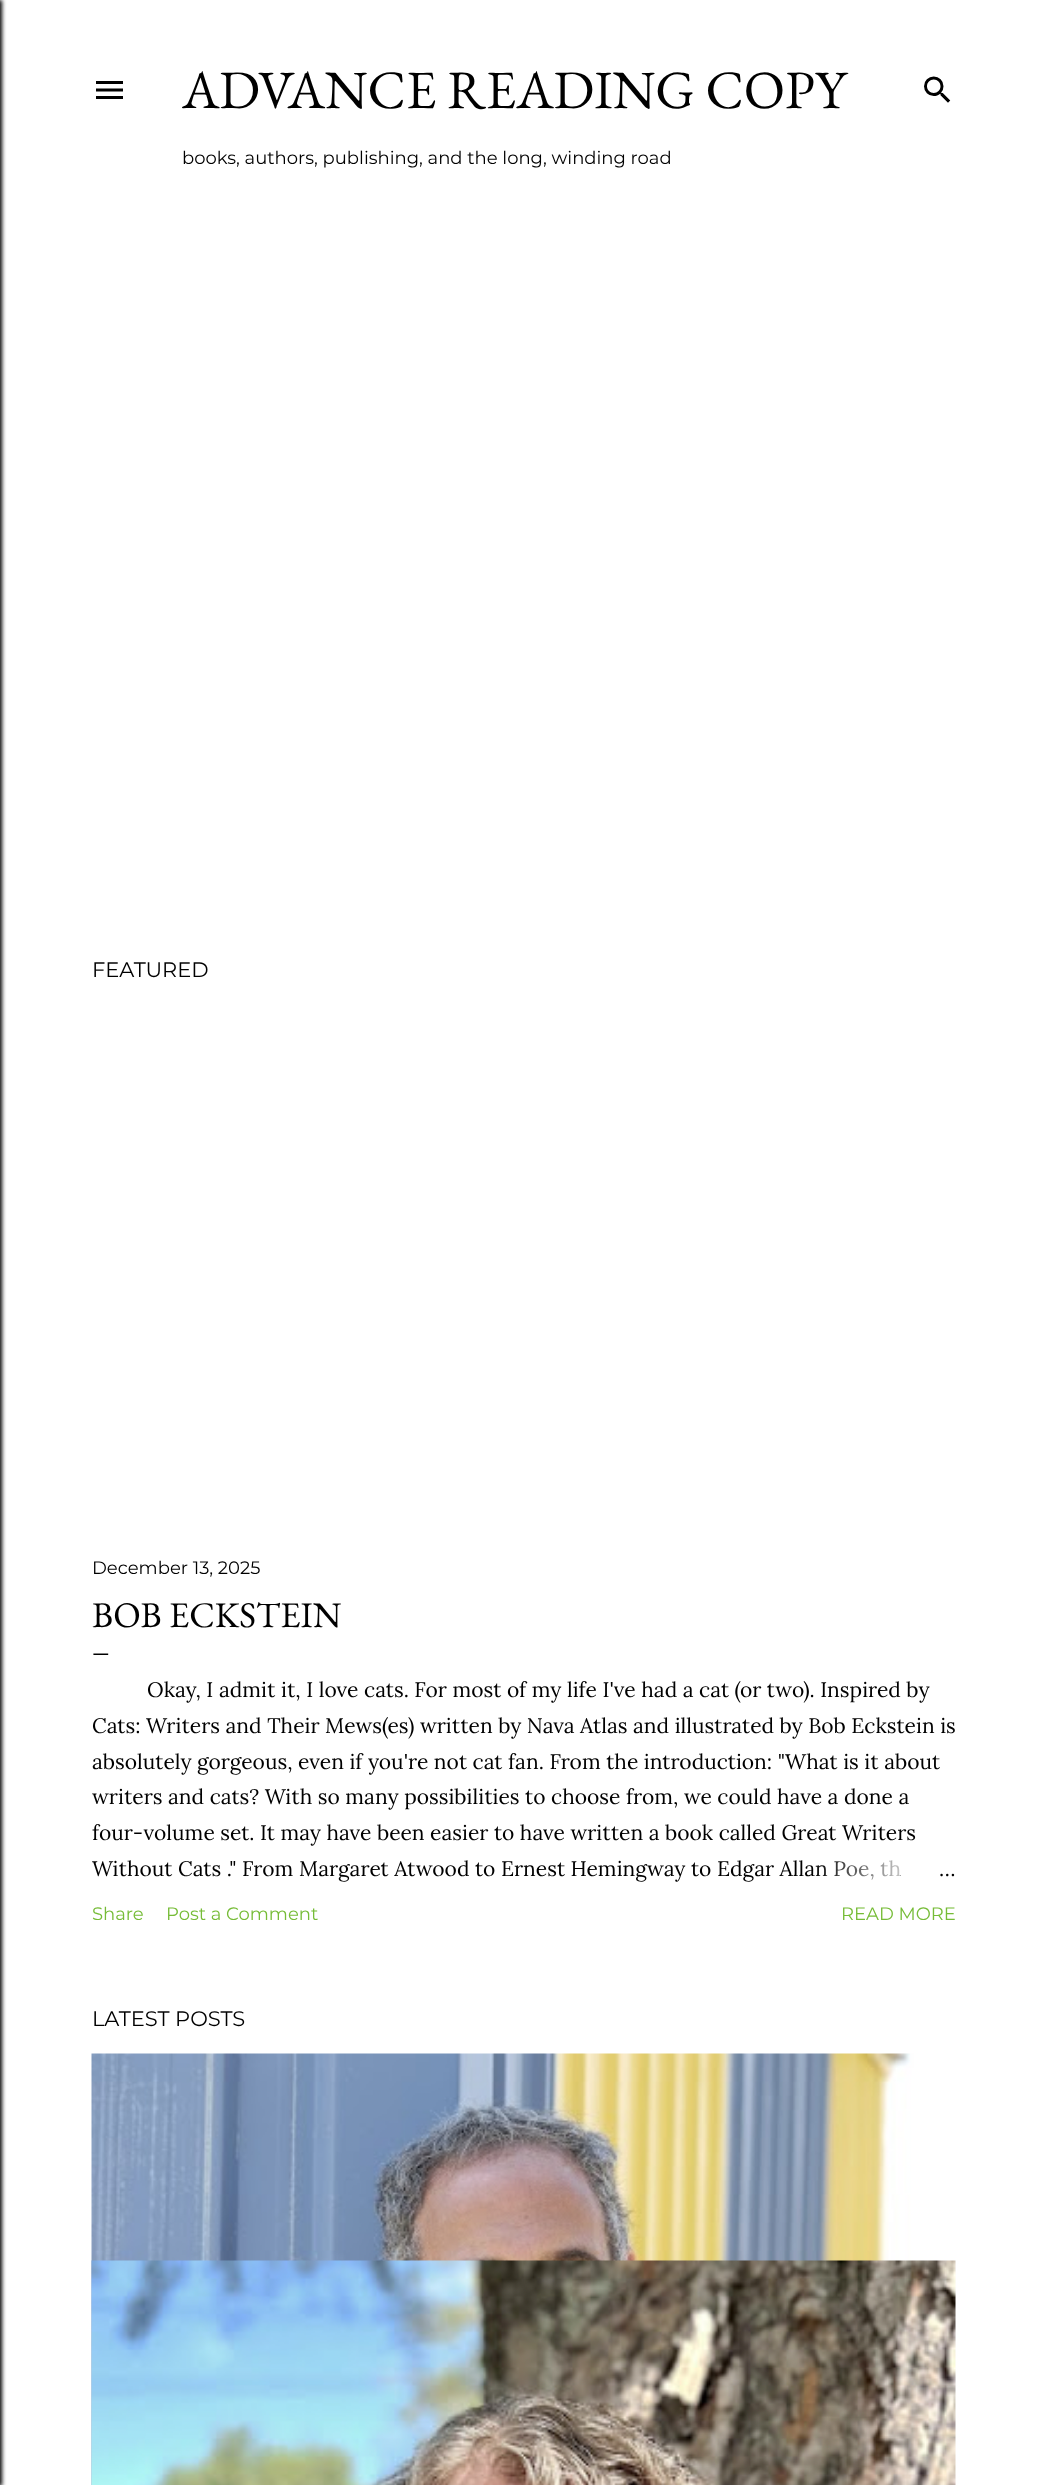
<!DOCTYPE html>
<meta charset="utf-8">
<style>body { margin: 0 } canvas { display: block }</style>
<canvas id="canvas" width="1046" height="2485"></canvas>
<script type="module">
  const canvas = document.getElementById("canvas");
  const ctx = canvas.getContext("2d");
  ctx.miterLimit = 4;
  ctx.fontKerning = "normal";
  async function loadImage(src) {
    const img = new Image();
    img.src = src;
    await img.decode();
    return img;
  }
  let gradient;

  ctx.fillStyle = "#ffffff";
  ctx.fillRect(0, 0, 1046, 2485);
  ctx.fillStyle = "#000000";
  ctx.filter = "blur(2px)";
  ctx.beginPath();
  ctx.rect(-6, 0, 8, 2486);
  ctx.fill();
  ctx.filter = "none";
  ctx.drawImage(await loadImage("img1.png"), 96, 81, 27, 18);
  ctx.font = "54px EB Garamond";
  ctx.fillText("ADVANCE READING COPY", 182, 108);
  ctx.font = "100 18px Montserrat";
  ctx.fillText("books, authors, publishing, and the long, winding road", 182, 164);
  ctx.drawImage(await loadImage("img2.png"), 924, 76, 27, 27);
  ctx.font = "100 21px Montserrat";
  ctx.fillText("FEATURED", 92, 977);
  ctx.font = "100 18px Montserrat";
  ctx.fillText("December 13, 2025", 92, 1574);
  ctx.font = "36px EB Garamond";
  ctx.fillText("BOB ECKSTEIN", 92, 1627);
  ctx.font = "21px Lora";
  ctx.fillText("—", 92, 1661);
  ctx.fillText("Okay, I admit it, I love cats. For most of my life I've had a cat (or two). Inspired by", 147, 1697);
  ctx.fillText("Cats: Writers and Their Mews(es) written by Nava Atlas and illustrated by Bob Eckstein is", 92, 1733);
  ctx.fillText("absolutely gorgeous, even if you're not cat fan. From the introduction: \"What is it about", 92, 1769);
  ctx.fillText("writers and cats? With so many possibilities to choose from, we could have a done a", 92, 1804);
  ctx.fillText("four-volume set. It may have been easier to have written a book called Great Writers", 92, 1840);
  ctx.fillText("Without Cats .\" From Margaret Atwood to Ernest Hemingway to Edgar Allan Poe, th", 92, 1876);
  gradient = ctx.createLinearGradient(956, 1869, 812, 1869);
  gradient.addColorStop(0, "#ffffff");
  gradient.addColorStop(0.2, "#ffffff");
  gradient.addColorStop(1, "rgba(255, 255, 255, 0)");
  ctx.fillStyle = gradient;
  ctx.fillRect(815, 1860, 85, 20);
  ctx.fillStyle = "#000000";
  ctx.fillText("…", 939, 1876);
  ctx.font = "100 18px Montserrat";
  ctx.fillStyle = "#76bc37";
  ctx.fillText("Share", 92, 1920);
  ctx.fillText("Post a Comment", 166, 1920);
  ctx.fillText("READ MORE", 841, 1920);
  ctx.font = "100 21px Montserrat";
  ctx.fillStyle = "#000000";
  ctx.fillText("LATEST POSTS", 92, 2026);
  ctx.drawImage(await loadImage("img3.png"), 91, 2053, 863, 432);
  ctx.drawImage(await loadImage("img4.png"), 91, 2260, 865, 225);
</script>
